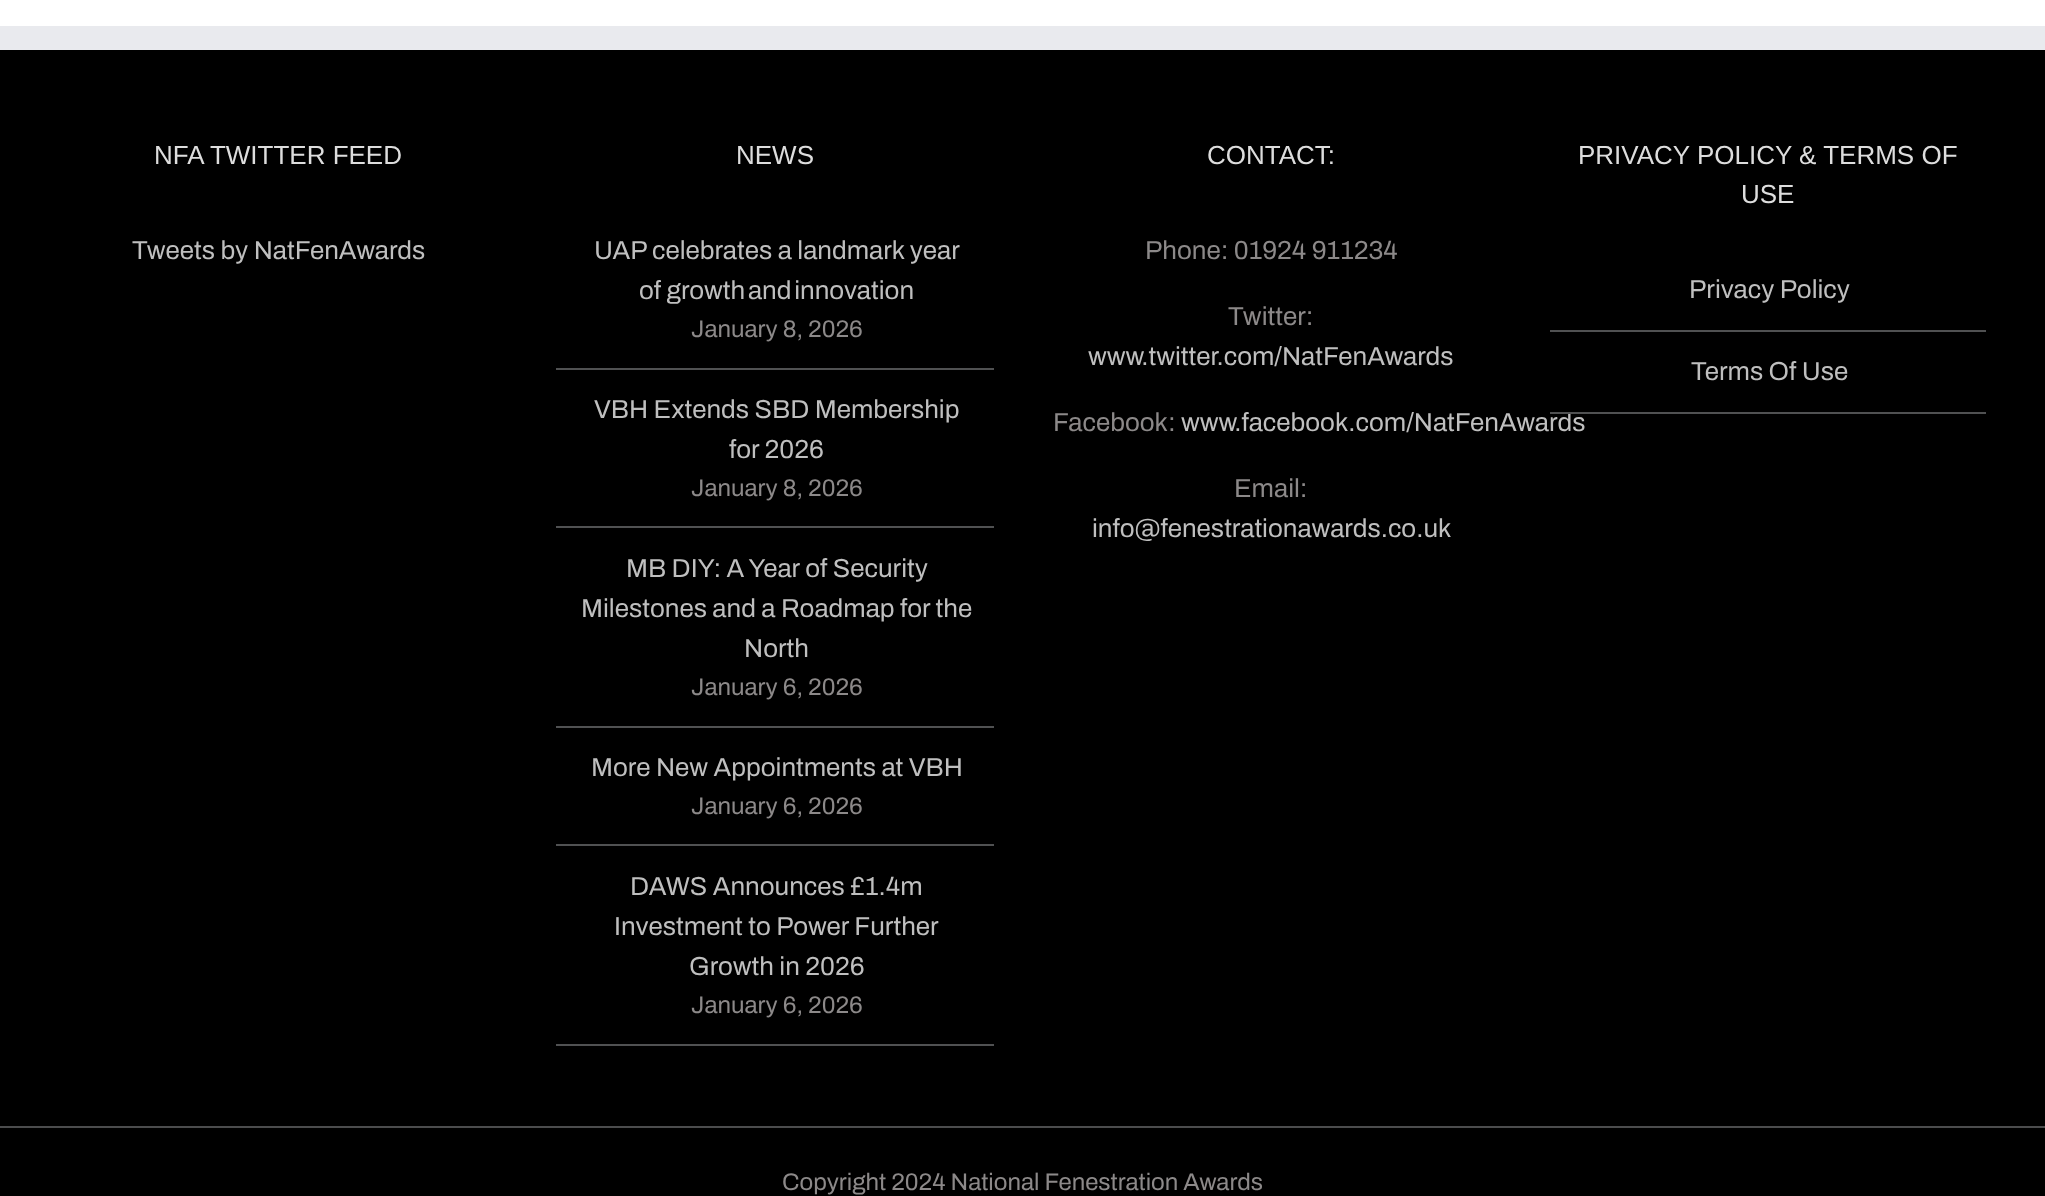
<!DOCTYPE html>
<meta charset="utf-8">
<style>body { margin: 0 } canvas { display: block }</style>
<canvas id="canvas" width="2045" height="1196"></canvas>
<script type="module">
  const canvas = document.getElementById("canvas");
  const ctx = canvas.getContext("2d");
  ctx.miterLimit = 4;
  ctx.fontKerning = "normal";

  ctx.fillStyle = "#ffffff";
  ctx.fillRect(0, 0, 2045, 1196);
  ctx.fillStyle = "#000000";
  ctx.fillRect(0, 50, 2045, 1076);
  ctx.fillStyle = "#e9eaee";
  ctx.fillRect(0, 26, 2045, 24);
  ctx.font = "26px Liberation Sans";
  ctx.fillStyle = "#dddddd";
  ctx.fillText("NFA TWITTER FEED", 154, 164);
  ctx.font = "26px Archivo";
  ctx.fillStyle = "#bfbfbf";
  ctx.fillText("Tweets by NatFenAwards", 132, 259);
  ctx.font = "26px Liberation Sans";
  ctx.fillStyle = "#dddddd";
  ctx.fillText("NEWS", 736, 164);
  ctx.fillStyle = "#505152";
  ctx.fillRect(556, 368, 438, 2);
  ctx.font = "26px Archivo";
  ctx.fillStyle = "#bfbfbf";
  ctx.fillText("UAP celebrates a landmark year", 594, 259);
  ctx.fillText("of growth and innovation", 639, 299);
  ctx.font = "24px Archivo";
  ctx.fillStyle = "#8c8989";
  ctx.fillText("January 8, 2026", 691, 337);
  ctx.fillStyle = "#505152";
  ctx.fillRect(556, 526, 438, 2);
  ctx.font = "26px Archivo";
  ctx.fillStyle = "#bfbfbf";
  ctx.fillText("VBH Extends SBD Membership", 594, 418);
  ctx.fillText("for 2026", 729, 458);
  ctx.font = "24px Archivo";
  ctx.fillStyle = "#8c8989";
  ctx.fillText("January 8, 2026", 691, 496);
  ctx.fillStyle = "#505152";
  ctx.fillRect(556, 726, 438, 2);
  ctx.font = "26px Archivo";
  ctx.fillStyle = "#bfbfbf";
  ctx.fillText("MB DIY: A Year of Security", 626, 577);
  ctx.fillText("Milestones and a Roadmap for the", 581, 617);
  ctx.fillText("North", 744, 657);
  ctx.font = "24px Archivo";
  ctx.fillStyle = "#8c8989";
  ctx.fillText("January 6, 2026", 691, 695);
  ctx.fillStyle = "#505152";
  ctx.fillRect(556, 844, 438, 2);
  ctx.font = "26px Archivo";
  ctx.fillStyle = "#bfbfbf";
  ctx.fillText("More New Appointments at VBH", 591, 776);
  ctx.font = "24px Archivo";
  ctx.fillStyle = "#8c8989";
  ctx.fillText("January 6, 2026", 691, 814);
  ctx.fillStyle = "#505152";
  ctx.fillRect(556, 1044, 438, 2);
  ctx.font = "26px Archivo";
  ctx.fillStyle = "#bfbfbf";
  ctx.fillText("DAWS Announces £1.4m", 630, 895);
  ctx.fillText("Investment to Power Further", 614, 935);
  ctx.fillText("Growth in 2026", 689, 975);
  ctx.font = "24px Archivo";
  ctx.fillStyle = "#8c8989";
  ctx.fillText("January 6, 2026", 691, 1013);
  ctx.font = "26px Liberation Sans";
  ctx.fillStyle = "#dddddd";
  ctx.fillText("CONTACT:", 1207, 164);
  ctx.font = "26px Archivo";
  ctx.fillStyle = "#8c8989";
  ctx.fillText("Phone: 01924 911234", 1145, 259);
  ctx.fillText("Twitter:", 1228, 325);
  ctx.fillStyle = "#bfbfbf";
  ctx.fillText("www.twitter.com/NatFenAwards", 1088, 365);
  ctx.fillStyle = "#8c8989";
  ctx.fillText("Facebook:", 1053, 431);
  ctx.fillStyle = "#bfbfbf";
  ctx.fillText("www.facebook.com/NatFenAwards", 1181, 431);
  ctx.fillStyle = "#8c8989";
  ctx.fillText("Email:", 1234, 497);
  ctx.fillStyle = "#bfbfbf";
  ctx.fillText("info@fenestrationawards.co.uk", 1092, 537);
  ctx.font = "26px Liberation Sans";
  ctx.fillStyle = "#dddddd";
  ctx.fillText("PRIVACY POLICY & TERMS OF", 1578, 164);
  ctx.fillText("USE", 1741, 203);
  ctx.fillStyle = "#505152";
  ctx.fillRect(1550, 330, 436, 2);
  ctx.font = "26px Archivo";
  ctx.fillStyle = "#bfbfbf";
  ctx.fillText("Privacy Policy", 1689, 298);
  ctx.fillStyle = "#505152";
  ctx.fillRect(1550, 412, 436, 2);
  ctx.fillStyle = "#bfbfbf";
  ctx.fillText("Terms Of Use", 1691, 380);
  ctx.fillStyle = "#000000";
  ctx.fillRect(0, 1128, 2045, 68);
  ctx.fillStyle = "#4b4c4d";
  ctx.fillRect(0, 1126, 2045, 2);
  ctx.font = "24px Archivo";
  ctx.fillStyle = "#8c8989";
  ctx.fillText("Copyright 2024 National Fenestration Awards", 782, 1190);
</script>
